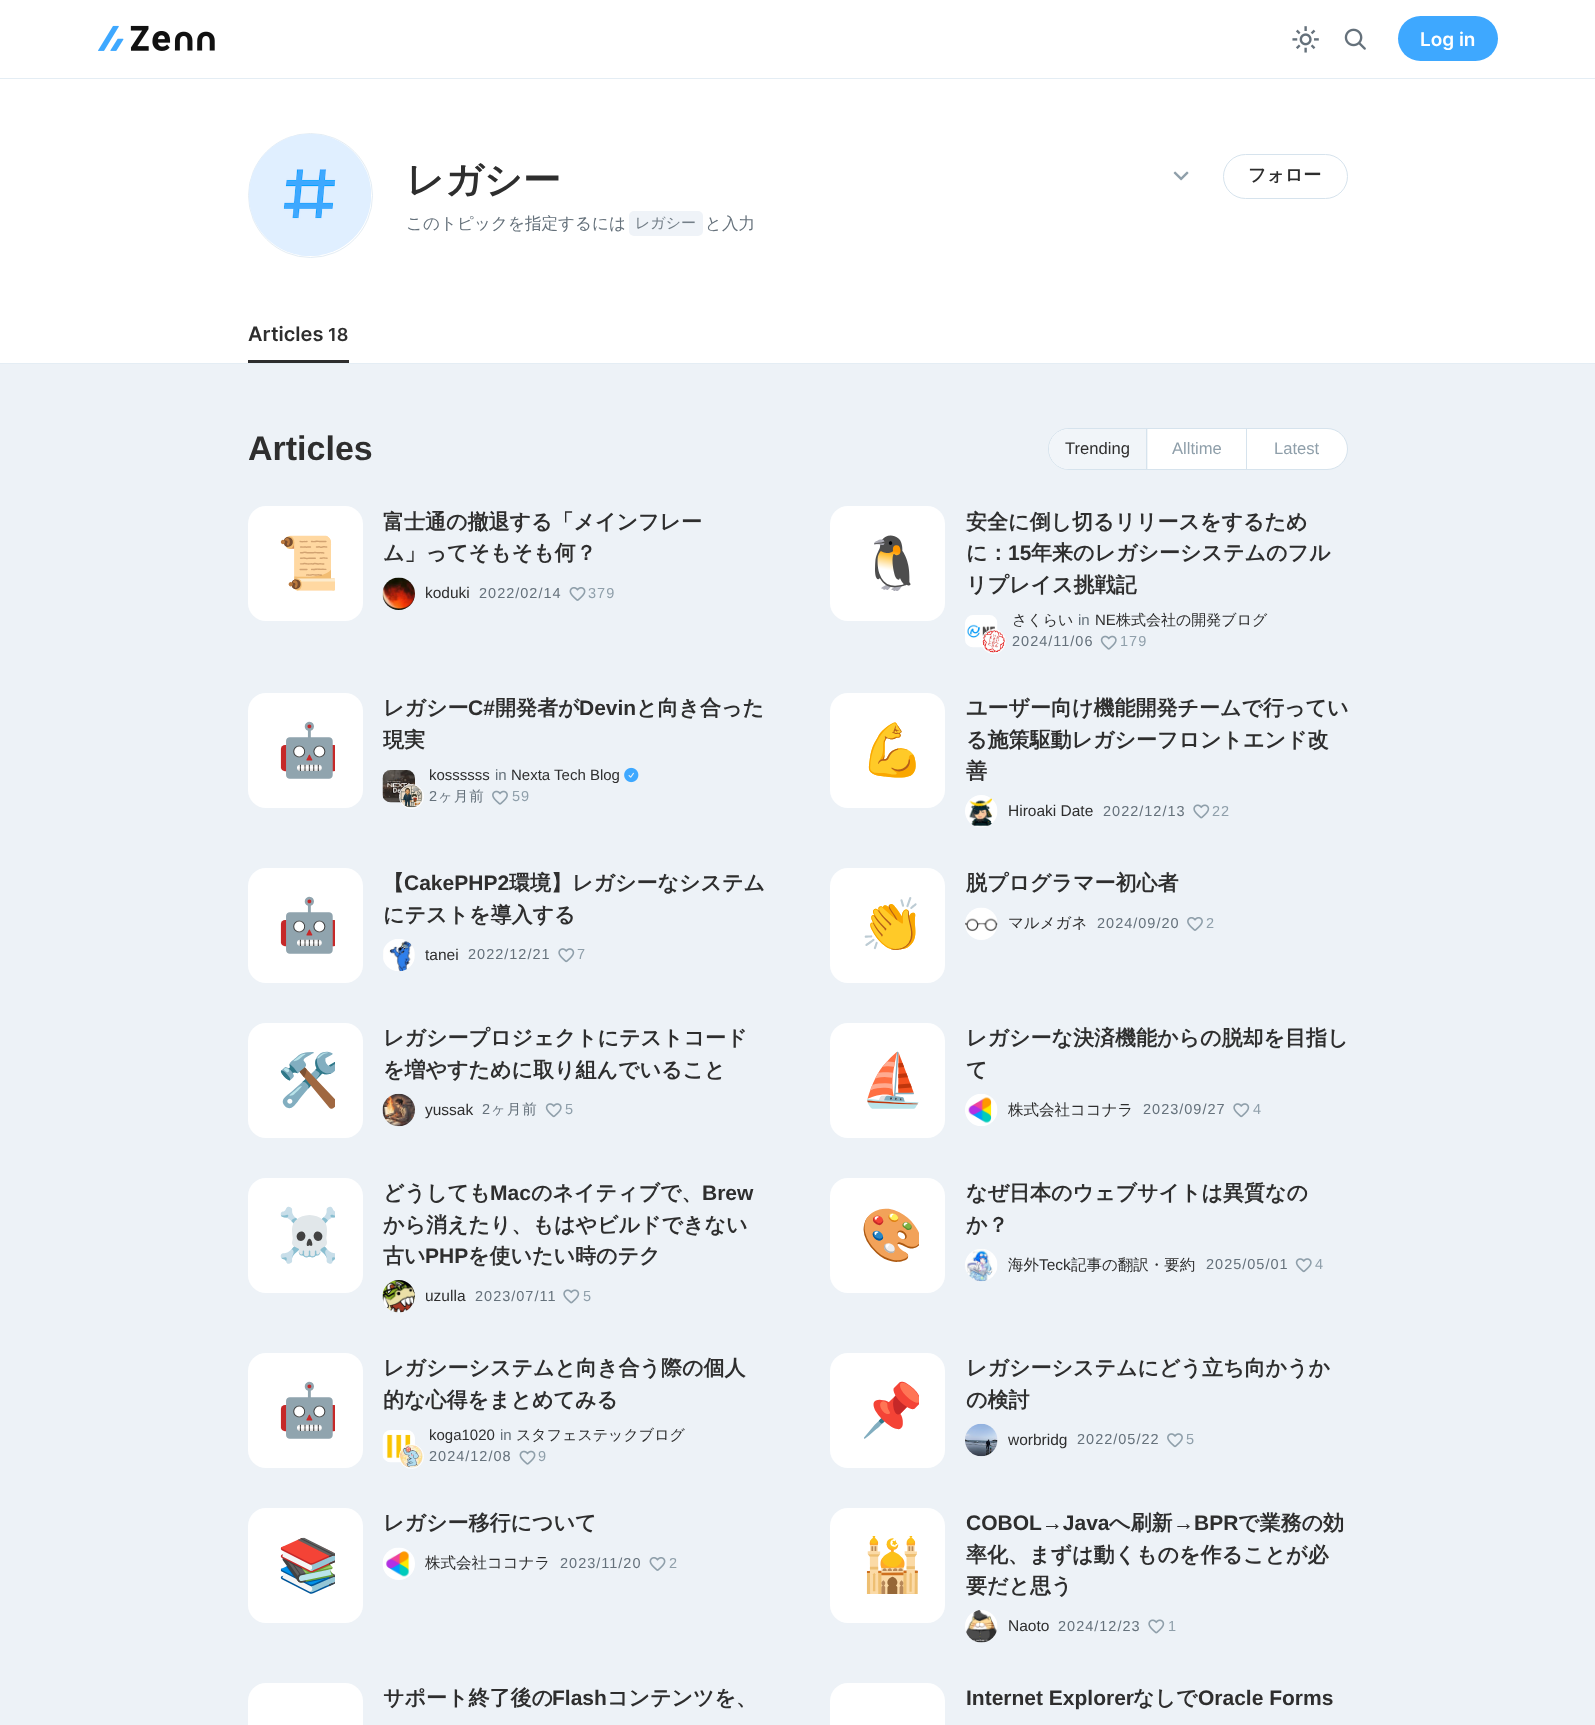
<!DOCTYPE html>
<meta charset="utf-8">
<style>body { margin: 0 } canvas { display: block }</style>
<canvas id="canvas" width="1595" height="1725"></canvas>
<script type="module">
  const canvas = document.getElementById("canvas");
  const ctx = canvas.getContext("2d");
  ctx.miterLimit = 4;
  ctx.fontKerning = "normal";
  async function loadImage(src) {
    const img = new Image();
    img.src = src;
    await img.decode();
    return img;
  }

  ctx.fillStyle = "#ffffff";
  ctx.fillRect(0, 0, 1595, 1725);
  ctx.drawImage(await loadImage("img1.png"), 98, 25, 117, 26);
  ctx.drawImage(await loadImage("img2.png"), 1292, 26, 27, 27);
  ctx.drawImage(await loadImage("img3.png"), 1344, 28, 22, 22);
  ctx.fillStyle = "#3ea8ff";
  ctx.beginPath();
  ctx.roundRect(1398, 16, 100, 45, 22.5);
  ctx.fill();
  ctx.font = "600 19px Inter";
  ctx.fillStyle = "#ffffff";
  ctx.fillText("Log in", 1420, 46);
  ctx.fillStyle = "#e4edf4";
  ctx.fillRect(0, 78, 1595, 1);
  ctx.fillRect(0, 363, 1595, 1);
  ctx.beginPath();
  ctx.arc(310.5, 195.5, 62, 0, Math.PI * 2);
  ctx.strokeStyle = "#e4edf4";
  ctx.stroke();
  ctx.drawImage(await loadImage("img4.png"), 249, 134, 122, 122);
  ctx.font = "bold 38px WenQuanYi Zen Hei";
  ctx.fillStyle = "#2e2e2e";
  ctx.fillText("レガシー", 406, 193);
  ctx.font = "500 16.6px WenQuanYi Zen Hei";
  ctx.fillStyle = "#65717b";
  ctx.fillText("このトピックを指定するには", 406, 229);
  ctx.fillStyle = "#eff3f8";
  ctx.beginPath();
  ctx.roundRect(629, 211, 74, 25, 5);
  ctx.fill();
  ctx.font = "500 15px WenQuanYi Zen Hei";
  ctx.fillStyle = "#747f88";
  ctx.fillText("レガシー", 635, 228);
  ctx.font = "500 16.6px WenQuanYi Zen Hei";
  ctx.fillStyle = "#65717b";
  ctx.fillText("と入力", 705, 229);
  ctx.drawImage(await loadImage("img5.png"), 1173, 171, 16, 10);
  ctx.beginPath();
  ctx.roundRect(1223.5, 154.5, 124, 44, 22);
  ctx.strokeStyle = "#d6e3ed";
  ctx.stroke();
  ctx.font = "bold 18px WenQuanYi Zen Hei";
  ctx.fillStyle = "#2e2e2e";
  ctx.fillText("フォロー", 1248, 181);
  ctx.fillRect(248, 360, 101, 3);
  ctx.font = "600 20px Inter";
  ctx.fillText("Articles", 248, 341);
  ctx.font = "600 18px Inter";
  ctx.fillText("18", 328, 341);
  ctx.fillStyle = "#edf2f7";
  ctx.fillRect(0, 364, 1595, 1361);
  ctx.font = "bold 34px Liberation Sans";
  ctx.fillStyle = "#2e2e2e";
  ctx.fillText("Articles", 248, 460);
  ctx.fillStyle = "#ffffff";
  ctx.beginPath();
  ctx.roundRect(1048.5, 428.5, 299, 41, 20.5);
  ctx.fill();
  ctx.stroke();
  ctx.fillStyle = "#f1f5f9";
  ctx.beginPath();
  ctx.roundRect(1049, 429, 99, 40, [20, 0, 0, 20]);
  ctx.fill();
  ctx.fillStyle = "#d6e3ed";
  ctx.fillRect(1146, 429, 1, 40);
  ctx.font = "16.6px Liberation Sans";
  ctx.fillStyle = "#2e2e2e";
  ctx.fillText("Trending", 1065, 454);
  ctx.fillStyle = "#d6e3ed";
  ctx.fillRect(1246, 429, 1, 40);
  ctx.fillStyle = "#8f9faa";
  ctx.fillText("Alltime", 1172, 454);
  ctx.fillText("Latest", 1274, 454);
  ctx.fillStyle = "#ffffff";
  ctx.beginPath();
  ctx.roundRect(248, 506, 115, 115, 18);
  ctx.fill();
  ctx.save();
  ctx.beginPath();
  ctx.rect(278, 535, 57, 58);
  ctx.clip();
  ctx.letterSpacing = "5px";
  ctx.font = "52px Noto Color Emoji";
  ctx.fillStyle = "#000000";
  ctx.fillText("📜", 277, 581);
  ctx.restore();
  ctx.font = "bold 21px WenQuanYi Zen Hei";
  ctx.fillStyle = "#2e2e2e";
  ctx.fillText("富士通の撤退する「メインフレー", 383, 529);
  ctx.fillText("ム」ってそもそも何？", 383, 560);
  ctx.drawImage(await loadImage("img6.png"), 382, 577, 33, 33);
  ctx.font = "15.5px Liberation Sans";
  ctx.fillText("koduki", 425, 598);
  ctx.letterSpacing = "1px";
  ctx.font = "14.5px Liberation Sans";
  ctx.fillStyle = "#65717b";
  ctx.fillText("2022/02/14", 479, 598);
  ctx.drawImage(await loadImage("img7.png"), 569, 587, 17, 14);
  ctx.fillStyle = "#8f9faa";
  ctx.fillText("379", 588, 598);
  ctx.fillStyle = "#ffffff";
  ctx.beginPath();
  ctx.roundRect(830, 506, 115, 115, 18);
  ctx.fill();
  ctx.save();
  ctx.beginPath();
  ctx.rect(860, 535, 59, 58);
  ctx.clip();
  ctx.letterSpacing = "5px";
  ctx.font = "52px Noto Color Emoji";
  ctx.fillStyle = "#000000";
  ctx.fillText("🐧", 860, 581);
  ctx.restore();
  ctx.letterSpacing = "0px";
  ctx.font = "bold 21px WenQuanYi Zen Hei";
  ctx.fillStyle = "#2e2e2e";
  ctx.fillText("安全に倒し切るリリースをするため", 966, 529);
  ctx.fillText("に：", 966, 560);
  ctx.font = "bold 21px Liberation Sans";
  ctx.fillText("15", 1008, 560);
  ctx.font = "bold 21px WenQuanYi Zen Hei";
  ctx.fillText("年来のレガシーシステムのフル", 1031, 560);
  ctx.fillText("リプレイス挑戦記", 966, 592);
  ctx.drawImage(await loadImage("img8.png"), 965, 615, 33, 33);
  ctx.beginPath();
  ctx.arc(993.5, 641.5, 12, 0, Math.PI * 2);
  ctx.strokeStyle = "#ffffff";
  ctx.stroke();
  ctx.drawImage(await loadImage("img9.png"), 982, 630, 23, 23);
  ctx.font = "500 15px WenQuanYi Zen Hei";
  ctx.fillText("さくらい", 1012, 625);
  ctx.font = "15px Liberation Sans";
  ctx.fillStyle = "#65717b";
  ctx.fillText("in", 1078, 625);
  ctx.fillStyle = "#2e2e2e";
  ctx.fillText("NE", 1095, 625);
  ctx.font = "500 15px WenQuanYi Zen Hei";
  ctx.fillText("株式会社の開発ブログ", 1116, 625);
  ctx.letterSpacing = "1px";
  ctx.font = "14.5px Liberation Sans";
  ctx.fillStyle = "#65717b";
  ctx.fillText("2024/11/06", 1012, 646);
  ctx.drawImage(await loadImage("img10.png"), 1100, 635, 17, 15);
  ctx.fillStyle = "#8f9faa";
  ctx.fillText("179", 1120, 646);
  ctx.fillStyle = "#ffffff";
  ctx.beginPath();
  ctx.roundRect(248, 693, 115, 115, 18);
  ctx.fill();
  ctx.save();
  ctx.beginPath();
  ctx.rect(278, 721, 57, 58);
  ctx.clip();
  ctx.letterSpacing = "5px";
  ctx.font = "52px Noto Color Emoji";
  ctx.fillStyle = "#000000";
  ctx.fillText("🤖", 277, 768);
  ctx.restore();
  ctx.letterSpacing = "0px";
  ctx.font = "bold 21px WenQuanYi Zen Hei";
  ctx.fillStyle = "#2e2e2e";
  ctx.fillText("レガシー", 383, 715);
  ctx.font = "bold 21px Liberation Sans";
  ctx.fillText("C#", 468, 715);
  ctx.font = "bold 21px WenQuanYi Zen Hei";
  ctx.fillText("開発者が", 495, 715);
  ctx.font = "bold 21px Liberation Sans";
  ctx.fillText("Devin", 579, 715);
  ctx.font = "bold 21px WenQuanYi Zen Hei";
  ctx.fillText("と向き合った", 636, 715);
  ctx.save();
  ctx.beginPath();
  ctx.rect(383, 693, 382, 63);
  ctx.clip();
  ctx.fillText("現実", 383, 747);
  ctx.restore();
  ctx.drawImage(await loadImage("img11.png"), 382, 770, 33, 33);
  ctx.beginPath();
  ctx.arc(411.5, 796.5, 12, 0, Math.PI * 2);
  ctx.stroke();
  ctx.drawImage(await loadImage("img12.png"), 400, 785, 23, 23);
  ctx.font = "15px Liberation Sans";
  ctx.fillText("kossssss", 429, 780);
  ctx.fillStyle = "#65717b";
  ctx.fillText("in", 495, 780);
  ctx.fillStyle = "#2e2e2e";
  ctx.fillText("Nexta Tech Blog", 511, 780);
  ctx.drawImage(await loadImage("img13.png"), 624, 767, 15, 16);
  ctx.letterSpacing = "1px";
  ctx.font = "14.5px Liberation Sans";
  ctx.fillStyle = "#65717b";
  ctx.fillText("2", 429, 801);
  ctx.font = "500 14.5px WenQuanYi Zen Hei";
  ctx.fillText("ヶ月前", 438, 801);
  ctx.drawImage(await loadImage("img14.png"), 492, 790, 16, 15);
  ctx.font = "14.5px Liberation Sans";
  ctx.fillStyle = "#8f9faa";
  ctx.fillText("59", 512, 801);
  ctx.fillStyle = "#ffffff";
  ctx.beginPath();
  ctx.roundRect(830, 693, 115, 115, 18);
  ctx.fill();
  ctx.save();
  ctx.beginPath();
  ctx.rect(860, 721, 59, 58);
  ctx.clip();
  ctx.letterSpacing = "5px";
  ctx.font = "52px Noto Color Emoji";
  ctx.fillStyle = "#000000";
  ctx.fillText("💪", 860, 768);
  ctx.restore();
  ctx.letterSpacing = "0px";
  ctx.font = "bold 21px WenQuanYi Zen Hei";
  ctx.fillStyle = "#2e2e2e";
  ctx.fillText("ユーザー向け機能開発チームで行ってい", 966, 715);
  ctx.fillText("る施策駆動レガシーフロントエンド改", 966, 747);
  ctx.fillText("善", 966, 778);
  ctx.drawImage(await loadImage("img15.png"), 965, 795, 33, 33);
  ctx.font = "15.5px Liberation Sans";
  ctx.fillText("Hiroaki Date", 1008, 816);
  ctx.letterSpacing = "1px";
  ctx.font = "14.5px Liberation Sans";
  ctx.fillStyle = "#65717b";
  ctx.fillText("2022/12/13", 1103, 816);
  ctx.drawImage(await loadImage("img16.png"), 1193, 804, 17, 15);
  ctx.fillStyle = "#8f9faa";
  ctx.fillText("22", 1212, 816);
  ctx.fillStyle = "#ffffff";
  ctx.beginPath();
  ctx.roundRect(248, 868, 115, 115, 18);
  ctx.fill();
  ctx.save();
  ctx.beginPath();
  ctx.rect(278, 896, 57, 58);
  ctx.clip();
  ctx.letterSpacing = "5px";
  ctx.font = "52px Noto Color Emoji";
  ctx.fillStyle = "#000000";
  ctx.fillText("🤖", 277, 943);
  ctx.restore();
  ctx.letterSpacing = "0px";
  ctx.font = "bold 21px WenQuanYi Zen Hei";
  ctx.fillStyle = "#2e2e2e";
  ctx.fillText("【", 383, 890);
  ctx.font = "bold 21px Liberation Sans";
  ctx.fillText("CakePHP2", 404, 890);
  ctx.font = "bold 21px WenQuanYi Zen Hei";
  ctx.fillText("環境】レガシーなシステム", 509, 890);
  ctx.fillText("にテストを導入する", 383, 922);
  ctx.drawImage(await loadImage("img17.png"), 383, 939, 32, 33);
  ctx.font = "15.5px Liberation Sans";
  ctx.fillText("tanei", 425, 960);
  ctx.letterSpacing = "1px";
  ctx.font = "14.5px Liberation Sans";
  ctx.fillStyle = "#65717b";
  ctx.fillText("2022/12/21", 468, 959);
  ctx.drawImage(await loadImage("img18.png"), 558, 948, 17, 15);
  ctx.fillStyle = "#8f9faa";
  ctx.fillText("7", 577, 959);
  ctx.fillStyle = "#ffffff";
  ctx.beginPath();
  ctx.roundRect(830, 868, 115, 115, 18);
  ctx.fill();
  ctx.save();
  ctx.beginPath();
  ctx.rect(860, 896, 59, 58);
  ctx.clip();
  ctx.letterSpacing = "5px";
  ctx.font = "52px Noto Color Emoji";
  ctx.fillStyle = "#000000";
  ctx.fillText("👏", 860, 943);
  ctx.restore();
  ctx.letterSpacing = "0px";
  ctx.font = "bold 21px WenQuanYi Zen Hei";
  ctx.fillStyle = "#2e2e2e";
  ctx.fillText("脱プログラマー初心者", 966, 890);
  ctx.drawImage(await loadImage("img19.png"), 965, 907, 33, 33);
  ctx.font = "500 15.5px WenQuanYi Zen Hei";
  ctx.fillText("マルメガネ", 1008, 928);
  ctx.letterSpacing = "1px";
  ctx.font = "14.5px Liberation Sans";
  ctx.fillStyle = "#65717b";
  ctx.fillText("2024/09/20", 1097, 928);
  ctx.drawImage(await loadImage("img20.png"), 1187, 917, 16, 14);
  ctx.fillStyle = "#8f9faa";
  ctx.fillText("2", 1206, 928);
  ctx.fillStyle = "#ffffff";
  ctx.beginPath();
  ctx.roundRect(248, 1023, 115, 115, 18);
  ctx.fill();
  ctx.save();
  ctx.beginPath();
  ctx.rect(278, 1051, 57, 58);
  ctx.clip();
  ctx.letterSpacing = "5px";
  ctx.font = "52px Noto Color Emoji";
  ctx.fillStyle = "#000000";
  ctx.fillText("🛠️", 277, 1098);
  ctx.restore();
  ctx.letterSpacing = "0px";
  ctx.font = "bold 21px WenQuanYi Zen Hei";
  ctx.fillStyle = "#2e2e2e";
  ctx.fillText("レガシープロジェクトにテストコード", 383, 1045);
  ctx.fillText("を増やすために取り組んでいること", 383, 1077);
  ctx.drawImage(await loadImage("img21.png"), 382, 1093, 33, 34);
  ctx.font = "15.5px Liberation Sans";
  ctx.fillText("yussak", 425, 1115);
  ctx.letterSpacing = "1px";
  ctx.font = "14.5px Liberation Sans";
  ctx.fillStyle = "#65717b";
  ctx.fillText("2", 482, 1114);
  ctx.font = "500 14.5px WenQuanYi Zen Hei";
  ctx.fillText("ヶ月前", 491, 1114);
  ctx.drawImage(await loadImage("img22.png"), 545, 1103, 17, 15);
  ctx.font = "14.5px Liberation Sans";
  ctx.fillStyle = "#8f9faa";
  ctx.fillText("5", 565, 1114);
  ctx.fillStyle = "#ffffff";
  ctx.beginPath();
  ctx.roundRect(830, 1023, 115, 115, 18);
  ctx.fill();
  ctx.save();
  ctx.beginPath();
  ctx.rect(860, 1051, 59, 58);
  ctx.clip();
  ctx.letterSpacing = "5px";
  ctx.font = "52px Noto Color Emoji";
  ctx.fillStyle = "#000000";
  ctx.fillText("⛵", 860, 1098);
  ctx.restore();
  ctx.letterSpacing = "0px";
  ctx.font = "bold 21px WenQuanYi Zen Hei";
  ctx.fillStyle = "#2e2e2e";
  ctx.fillText("レガシーな決済機能からの脱却を目指し", 966, 1045);
  ctx.fillText("て", 966, 1077);
  ctx.drawImage(await loadImage("img23.png"), 965, 1094, 33, 32);
  ctx.font = "500 15.5px WenQuanYi Zen Hei";
  ctx.fillText("株式会社ココナラ", 1008, 1115);
  ctx.letterSpacing = "1px";
  ctx.font = "14.5px Liberation Sans";
  ctx.fillStyle = "#65717b";
  ctx.fillText("2023/09/27", 1143, 1114);
  ctx.drawImage(await loadImage("img18.png"), 1233, 1103, 17, 15);
  ctx.fillStyle = "#8f9faa";
  ctx.fillText("4", 1253, 1114);
  ctx.fillStyle = "#ffffff";
  ctx.beginPath();
  ctx.roundRect(248, 1178, 115, 115, 18);
  ctx.fill();
  ctx.save();
  ctx.beginPath();
  ctx.rect(278, 1206, 57, 58);
  ctx.clip();
  ctx.letterSpacing = "5px";
  ctx.font = "52px Noto Color Emoji";
  ctx.fillStyle = "#000000";
  ctx.fillText("☠️", 277, 1253);
  ctx.restore();
  ctx.letterSpacing = "0px";
  ctx.font = "bold 21px WenQuanYi Zen Hei";
  ctx.fillStyle = "#2e2e2e";
  ctx.fillText("どうしても", 383, 1200);
  ctx.font = "bold 21px Liberation Sans";
  ctx.fillText("Mac", 490, 1200);
  ctx.font = "bold 21px WenQuanYi Zen Hei";
  ctx.fillText("のネイティブで、", 531, 1200);
  ctx.font = "bold 21px Liberation Sans";
  ctx.fillText("Brew", 702, 1200);
  ctx.font = "bold 21px WenQuanYi Zen Hei";
  ctx.fillText("から消えたり、もはやビルドできない", 383, 1232);
  ctx.fillText("古い", 383, 1263);
  ctx.font = "bold 21px Liberation Sans";
  ctx.fillText("PHP", 425, 1263);
  ctx.font = "bold 21px WenQuanYi Zen Hei";
  ctx.fillText("を使いたい時のテク", 468, 1263);
  ctx.drawImage(await loadImage("img24.png"), 382, 1280, 33, 33);
  ctx.font = "15.5px Liberation Sans";
  ctx.fillText("uzulla", 425, 1301);
  ctx.letterSpacing = "1px";
  ctx.font = "14.5px Liberation Sans";
  ctx.fillStyle = "#65717b";
  ctx.fillText("2023/07/11", 475, 1301);
  ctx.drawImage(await loadImage("img16.png"), 563, 1289, 17, 15);
  ctx.fillStyle = "#8f9faa";
  ctx.fillText("5", 583, 1301);
  ctx.fillStyle = "#ffffff";
  ctx.beginPath();
  ctx.roundRect(830, 1178, 115, 115, 18);
  ctx.fill();
  ctx.save();
  ctx.beginPath();
  ctx.rect(860, 1206, 59, 58);
  ctx.clip();
  ctx.letterSpacing = "5px";
  ctx.font = "52px Noto Color Emoji";
  ctx.fillStyle = "#000000";
  ctx.fillText("🎨", 860, 1253);
  ctx.restore();
  ctx.letterSpacing = "0px";
  ctx.font = "bold 21px WenQuanYi Zen Hei";
  ctx.fillStyle = "#2e2e2e";
  ctx.fillText("なぜ日本のウェブサイトは異質なの", 966, 1200);
  ctx.fillText("か？", 966, 1232);
  ctx.drawImage(await loadImage("img25.png"), 965, 1249, 33, 33);
  ctx.font = "500 15.5px WenQuanYi Zen Hei";
  ctx.fillText("海外", 1008, 1270);
  ctx.font = "15.5px Liberation Sans";
  ctx.fillText("Teck", 1039, 1270);
  ctx.font = "500 15.5px WenQuanYi Zen Hei";
  ctx.fillText("記事の翻訳・要約", 1071, 1270);
  ctx.letterSpacing = "1px";
  ctx.font = "14.5px Liberation Sans";
  ctx.fillStyle = "#65717b";
  ctx.fillText("2025/05/01", 1206, 1269);
  ctx.drawImage(await loadImage("img22.png"), 1295, 1258, 17, 15);
  ctx.fillStyle = "#8f9faa";
  ctx.fillText("4", 1315, 1269);
  ctx.fillStyle = "#ffffff";
  ctx.beginPath();
  ctx.roundRect(248, 1353, 115, 115, 18);
  ctx.fill();
  ctx.save();
  ctx.beginPath();
  ctx.rect(278, 1381, 57, 58);
  ctx.clip();
  ctx.letterSpacing = "5px";
  ctx.font = "52px Noto Color Emoji";
  ctx.fillStyle = "#000000";
  ctx.fillText("🤖", 277, 1428);
  ctx.restore();
  ctx.letterSpacing = "0px";
  ctx.font = "bold 21px WenQuanYi Zen Hei";
  ctx.fillStyle = "#2e2e2e";
  ctx.fillText("レガシーシステムと向き合う際の個人", 383, 1375);
  ctx.fillText("的な心得をまとめてみる", 383, 1407);
  ctx.drawImage(await loadImage("img26.png"), 382, 1430, 33, 33);
  ctx.beginPath();
  ctx.arc(411.5, 1456.5, 12, 0, Math.PI * 2);
  ctx.stroke();
  ctx.drawImage(await loadImage("img27.png"), 400, 1445, 23, 23);
  ctx.font = "15px Liberation Sans";
  ctx.fillText("koga1020", 429, 1440);
  ctx.fillStyle = "#65717b";
  ctx.fillText("in", 500, 1440);
  ctx.font = "500 15px WenQuanYi Zen Hei";
  ctx.fillStyle = "#2e2e2e";
  ctx.fillText("スタフェステックブログ", 516, 1440);
  ctx.letterSpacing = "1px";
  ctx.font = "14.5px Liberation Sans";
  ctx.fillStyle = "#65717b";
  ctx.fillText("2024/12/08", 429, 1461);
  ctx.drawImage(await loadImage("img28.png"), 519, 1450, 17, 15);
  ctx.fillStyle = "#8f9faa";
  ctx.fillText("9", 538, 1461);
  ctx.fillStyle = "#ffffff";
  ctx.beginPath();
  ctx.roundRect(830, 1353, 115, 115, 18);
  ctx.fill();
  ctx.save();
  ctx.beginPath();
  ctx.rect(860, 1381, 59, 58);
  ctx.clip();
  ctx.letterSpacing = "5px";
  ctx.font = "52px Noto Color Emoji";
  ctx.fillStyle = "#000000";
  ctx.fillText("📌", 860, 1428);
  ctx.restore();
  ctx.letterSpacing = "0px";
  ctx.font = "bold 21px WenQuanYi Zen Hei";
  ctx.fillStyle = "#2e2e2e";
  ctx.fillText("レガシーシステムにどう立ち向かうか", 966, 1375);
  ctx.fillText("の検討", 966, 1407);
  ctx.drawImage(await loadImage("img29.png"), 965, 1423, 33, 34);
  ctx.font = "15.5px Liberation Sans";
  ctx.fillText("worbridg", 1008, 1445);
  ctx.letterSpacing = "1px";
  ctx.font = "14.5px Liberation Sans";
  ctx.fillStyle = "#65717b";
  ctx.fillText("2022/05/22", 1077, 1444);
  ctx.drawImage(await loadImage("img30.png"), 1167, 1433, 16, 15);
  ctx.fillStyle = "#8f9faa";
  ctx.fillText("5", 1186, 1444);
  ctx.fillStyle = "#ffffff";
  ctx.beginPath();
  ctx.roundRect(248, 1508, 115, 115, 18);
  ctx.fill();
  ctx.save();
  ctx.beginPath();
  ctx.rect(278, 1536, 57, 58);
  ctx.clip();
  ctx.letterSpacing = "5px";
  ctx.font = "52px Noto Color Emoji";
  ctx.fillStyle = "#000000";
  ctx.fillText("📚", 277, 1583);
  ctx.restore();
  ctx.letterSpacing = "0px";
  ctx.font = "bold 21px WenQuanYi Zen Hei";
  ctx.fillStyle = "#2e2e2e";
  ctx.fillText("レガシー移行について", 383, 1530);
  ctx.drawImage(await loadImage("img31.png"), 382, 1547, 33, 33);
  ctx.font = "500 15.5px WenQuanYi Zen Hei";
  ctx.fillText("株式会社ココナラ", 425, 1568);
  ctx.letterSpacing = "1px";
  ctx.font = "14.5px Liberation Sans";
  ctx.fillStyle = "#65717b";
  ctx.fillText("2023/11/20", 560, 1568);
  ctx.drawImage(await loadImage("img7.png"), 649, 1557, 17, 14);
  ctx.fillStyle = "#8f9faa";
  ctx.fillText("2", 669, 1568);
  ctx.fillStyle = "#ffffff";
  ctx.beginPath();
  ctx.roundRect(830, 1508, 115, 115, 18);
  ctx.fill();
  ctx.save();
  ctx.beginPath();
  ctx.rect(860, 1536, 59, 58);
  ctx.clip();
  ctx.letterSpacing = "5px";
  ctx.font = "52px Noto Color Emoji";
  ctx.fillStyle = "#000000";
  ctx.fillText("🕌", 860, 1583);
  ctx.restore();
  ctx.letterSpacing = "0px";
  ctx.font = "bold 21px Liberation Sans";
  ctx.fillStyle = "#2e2e2e";
  ctx.fillText("COBOL→Java", 966, 1530);
  ctx.font = "bold 21px WenQuanYi Zen Hei";
  ctx.fillText("へ刷新", 1109, 1530);
  ctx.font = "bold 21px Liberation Sans";
  ctx.fillText("→BPR", 1173, 1530);
  ctx.font = "bold 21px WenQuanYi Zen Hei";
  ctx.fillText("で業務の効", 1238, 1530);
  ctx.fillText("率化、まずは動くものを作ることが必", 966, 1562);
  ctx.fillText("要だと思う", 966, 1593);
  ctx.drawImage(await loadImage("img32.png"), 965, 1610, 33, 33);
  ctx.font = "15.5px Liberation Sans";
  ctx.fillText("Naoto", 1008, 1631);
  ctx.letterSpacing = "1px";
  ctx.font = "14.5px Liberation Sans";
  ctx.fillStyle = "#65717b";
  ctx.fillText("2024/12/23", 1058, 1631);
  ctx.drawImage(await loadImage("img16.png"), 1148, 1619, 17, 15);
  ctx.fillStyle = "#8f9faa";
  ctx.fillText("1", 1168, 1631);
  ctx.fillStyle = "#ffffff";
  ctx.beginPath();
  ctx.roundRect(248, 1683, 115, 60, 18);
  ctx.fill();
  ctx.letterSpacing = "0px";
  ctx.font = "bold 21px WenQuanYi Zen Hei";
  ctx.fillStyle = "#2e2e2e";
  ctx.fillText("サポート終了後の", 383, 1705);
  ctx.font = "bold 21px Liberation Sans";
  ctx.fillText("Flash", 552, 1705);
  ctx.font = "bold 21px WenQuanYi Zen Hei";
  ctx.fillText("コンテンツを、", 607, 1705);
  ctx.fillStyle = "#ffffff";
  ctx.beginPath();
  ctx.roundRect(830, 1683, 115, 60, 18);
  ctx.fill();
  ctx.font = "bold 21px Liberation Sans";
  ctx.fillStyle = "#2e2e2e";
  ctx.fillText("Internet Explorer", 966, 1705);
  ctx.font = "bold 21px WenQuanYi Zen Hei";
  ctx.fillText("なしで", 1133, 1705);
  ctx.font = "bold 21px Liberation Sans";
  ctx.fillText("Oracle Forms", 1198, 1705);
</script>
